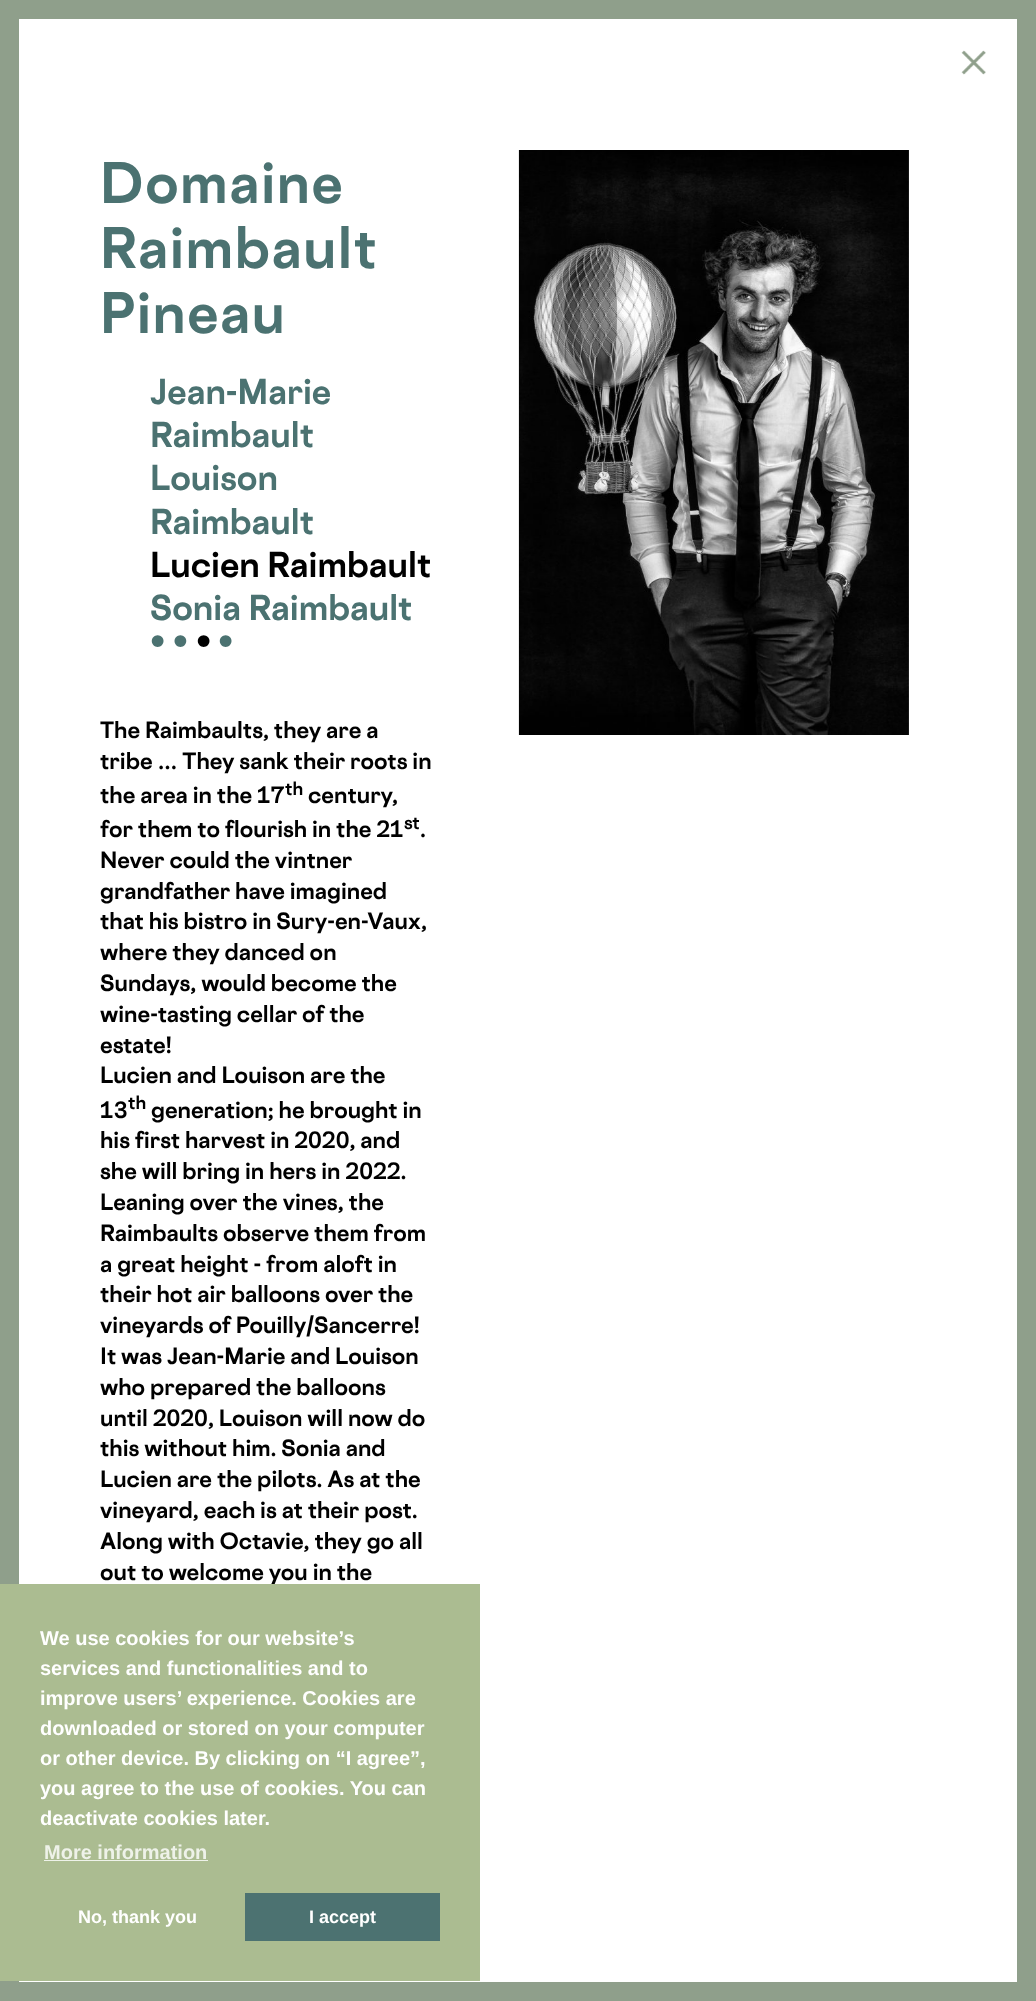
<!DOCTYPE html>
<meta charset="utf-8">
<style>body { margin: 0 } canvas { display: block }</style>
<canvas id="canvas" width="1036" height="2001"></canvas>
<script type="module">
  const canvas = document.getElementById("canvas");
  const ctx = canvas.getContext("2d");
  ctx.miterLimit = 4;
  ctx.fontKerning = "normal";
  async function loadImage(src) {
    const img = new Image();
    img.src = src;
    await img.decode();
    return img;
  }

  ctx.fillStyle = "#ffffff";
  ctx.fillRect(0, 0, 1036, 2001);
  ctx.strokeStyle = "#8f9f8b";
  ctx.lineWidth = 19;
  ctx.strokeRect(9.5, 9.5, 1017, 1982);
  ctx.drawImage(await loadImage("img1.png"), 961, 50, 25, 25);
  ctx.letterSpacing = "1.5px";
  ctx.font = "bold 52.5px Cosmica";
  ctx.fillStyle = "#4b7271";
  ctx.fillText("Domaine", 100, 203);
  ctx.fillText("Raimbault", 100, 268);
  ctx.fillText("Pineau", 100, 333);
  ctx.drawImage(await loadImage("img2.png"), 518, 150, 391, 585);
  ctx.letterSpacing = "0px";
  ctx.font = "bold 32.5px Cosmica";
  ctx.fillText("Jean-Marie", 150, 404);
  ctx.fillText("Raimbault", 150, 447);
  ctx.fillText("Louison", 150, 490);
  ctx.fillText("Raimbault", 150, 534);
  ctx.fillStyle = "#000000";
  ctx.fillText("Lucien Raimbault", 150, 577);
  ctx.fillStyle = "#4b7271";
  ctx.fillText("Sonia Raimbault", 150, 620);
  ctx.fillText("• •", 150, 652);
  ctx.fillStyle = "#000000";
  ctx.fillText("•", 196, 652);
  ctx.fillStyle = "#4b7271";
  ctx.fillText("•", 218, 652);
  ctx.font = "bold 21.25px Cosmica";
  ctx.fillStyle = "#000000";
  ctx.fillText("The Raimbaults, they are a", 100, 738);
  ctx.fillText("tribe … They sank their roots in", 100, 769);
  ctx.fillText("the area in the 17", 100, 803);
  ctx.font = "bold 17px Cosmica";
  ctx.fillText("th", 285, 795);
  ctx.font = "bold 21.25px Cosmica";
  ctx.fillText("century,", 308, 803);
  ctx.fillText("for them to flourish in the 21", 100, 837);
  ctx.font = "bold 17px Cosmica";
  ctx.fillText("st", 404, 829);
  ctx.font = "bold 21.25px Cosmica";
  ctx.fillText(".", 420, 837);
  ctx.fillText("Never could the vintner", 100, 868);
  ctx.fillText("grandfather have imagined", 100, 899);
  ctx.fillText("that his bistro in Sury-en-Vaux,", 100, 929);
  ctx.fillText("where they danced on", 100, 960);
  ctx.fillText("Sundays, would become the", 100, 991);
  ctx.fillText("wine-tasting cellar of the", 100, 1022);
  ctx.fillText("estate!", 100, 1053);
  ctx.fillText("Lucien and Louison are the", 100, 1083);
  ctx.fillText("13", 100, 1118);
  ctx.font = "bold 17px Cosmica";
  ctx.fillText("th", 128, 1109);
  ctx.font = "bold 21.25px Cosmica";
  ctx.fillText("generation; he brought in", 151, 1118);
  ctx.fillText("his first harvest in 2020, and", 100, 1148);
  ctx.fillText("she will bring in hers in 2022.", 100, 1179);
  ctx.fillText("Leaning over the vines, the", 100, 1210);
  ctx.fillText("Raimbaults observe them from", 100, 1241);
  ctx.fillText("a great height - from aloft in", 100, 1272);
  ctx.fillText("their hot air balloons over the", 100, 1302);
  ctx.fillText("vineyards of Pouilly/Sancerre!", 100, 1333);
  ctx.fillText("It was Jean-Marie and Louison", 100, 1364);
  ctx.fillText("who prepared the balloons", 100, 1395);
  ctx.fillText("until 2020, Louison will now do", 100, 1426);
  ctx.fillText("this without him. Sonia and", 100, 1456);
  ctx.fillText("Lucien are the pilots. As at the", 100, 1487);
  ctx.fillText("vineyard, each is at their post.", 100, 1518);
  ctx.fillText("Along with Octavie, they go all", 100, 1549);
  ctx.fillText("out to welcome you in the", 100, 1580);
  ctx.fillStyle = "#abbc91";
  ctx.fillRect(0, 1584, 480, 397);
  ctx.font = "bold 20px Liberation Sans";
  ctx.fillStyle = "#ffffff";
  ctx.fillText("We use cookies for our website’s", 40, 1645);
  ctx.fillText("services and functionalities and to", 40, 1675);
  ctx.fillText("improve users’ experience. Cookies are", 40, 1705);
  ctx.fillText("downloaded or stored on your computer", 40, 1735);
  ctx.fillText("or other device. By clicking on “I agree”,", 40, 1765);
  ctx.fillText("you agree to the use of cookies. You can", 40, 1795);
  ctx.fillText("deactivate cookies later.", 40, 1825);
  ctx.fillStyle = "#eef2e9";
  ctx.fillText("More information", 44, 1859);
  ctx.fillRect(44, 1860, 164, 1);
  ctx.font = "bold 18px Liberation Sans";
  ctx.fillStyle = "#ffffff";
  ctx.fillText("No, thank you", 78, 1923);
  ctx.fillStyle = "#4c7271";
  ctx.fillRect(245, 1893, 195, 48);
  ctx.fillStyle = "#ffffff";
  ctx.fillText("I accept", 309, 1923);
</script>
